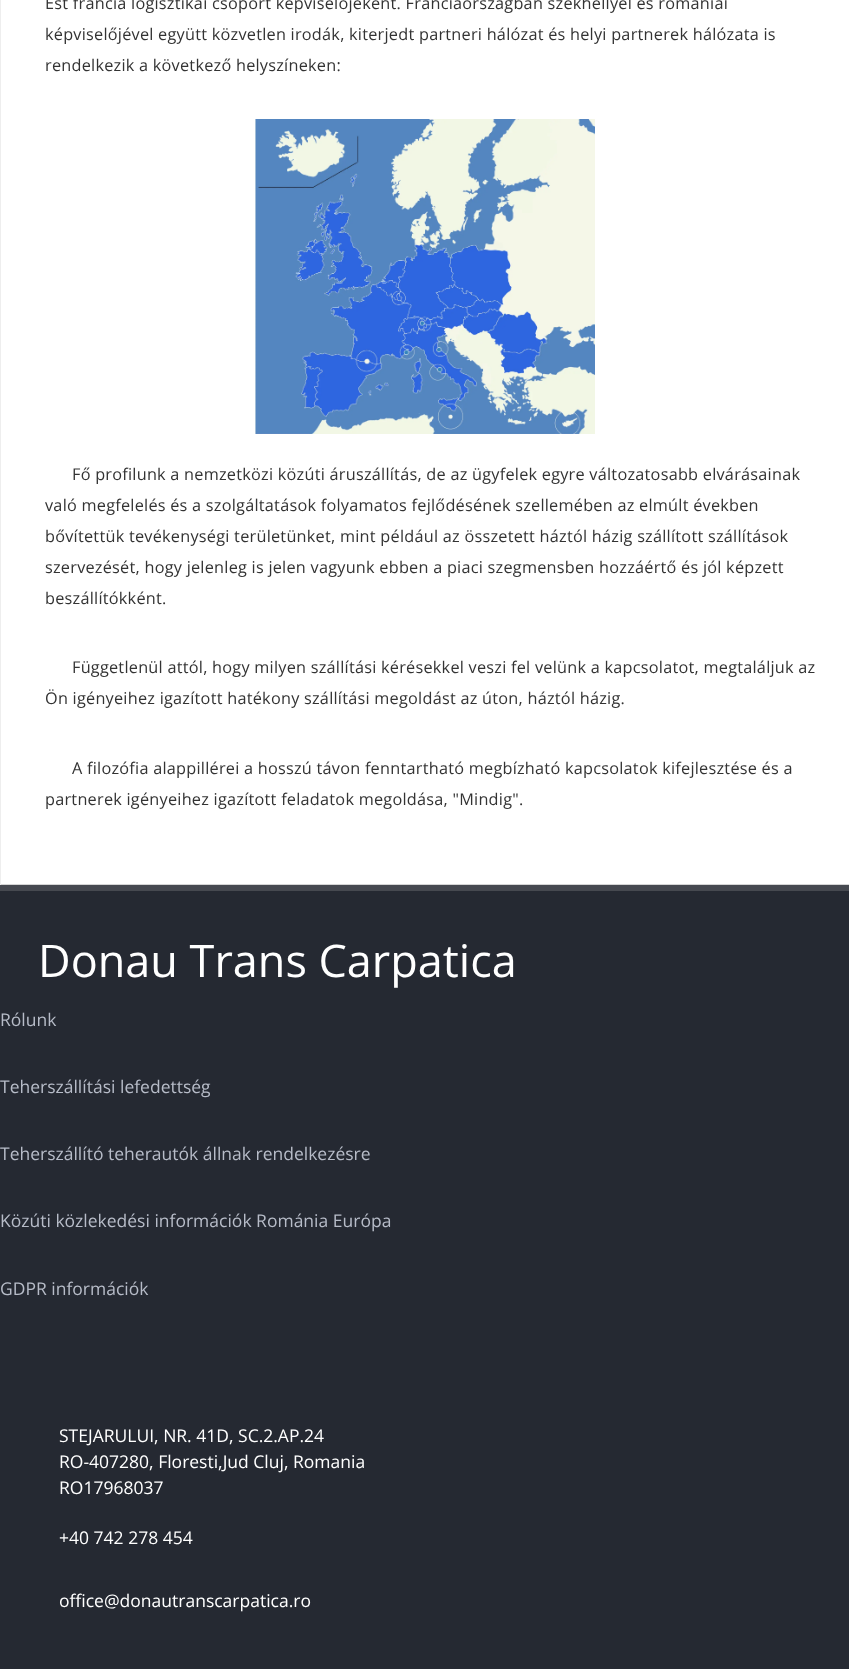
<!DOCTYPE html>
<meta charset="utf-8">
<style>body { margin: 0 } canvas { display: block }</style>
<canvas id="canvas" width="849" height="1669"></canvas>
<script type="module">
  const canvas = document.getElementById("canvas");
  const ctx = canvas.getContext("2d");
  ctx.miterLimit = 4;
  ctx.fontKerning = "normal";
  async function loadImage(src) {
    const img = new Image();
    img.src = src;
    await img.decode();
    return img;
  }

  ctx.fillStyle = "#252932";
  ctx.fillRect(0, 0, 849, 1669);
  ctx.fillStyle = "#464950";
  ctx.fillRect(0, 885, 849, 6);
  ctx.fillStyle = "#ffffff";
  ctx.fillRect(1, 0, 848, 884);
  ctx.fillStyle = "#d5d5d5";
  ctx.fillRect(0, 884, 849, 1);
  ctx.fillStyle = "#eeeeee";
  ctx.fillRect(0, 0, 1, 885);
  ctx.letterSpacing = "0.25px";
  ctx.font = "16.25px Open Sans";
  ctx.fillStyle = "#333333";
  ctx.fillText("Est francia logisztikai csoport képviselőjeként. Franciaországban székhellyel és romániai", 45, 9);
  ctx.fillText("képviselőjével együtt közvetlen irodák, kiterjedt partneri hálózat és helyi partnerek hálózata is", 45, 40);
  ctx.fillText("rendelkezik a következő helyszíneken:", 45, 71);
  ctx.drawImage(await loadImage("img1.png"), 255, 119, 340, 315);
  ctx.fillText("Fő profilunk a nemzetközi közúti áruszállítás, de az ügyfelek egyre változatosabb elvárásainak", 72, 480);
  ctx.fillText("való megfelelés és a szolgáltatások folyamatos fejlődésének szellemében az elmúlt években", 45, 511);
  ctx.fillText("bővítettük tevékenységi területünket, mint például az összetett háztól házig szállított szállítások", 45, 542);
  ctx.fillText("szervezését, hogy jelenleg is jelen vagyunk ebben a piaci szegmensben hozzáértő és jól képzett", 45, 573);
  ctx.fillText("beszállítókként.", 45, 604);
  ctx.fillText("Függetlenül attól, hogy milyen szállítási kérésekkel veszi fel velünk a kapcsolatot, megtaláljuk az", 72, 673);
  ctx.fillText("Ön igényeihez igazított hatékony szállítási megoldást az úton, háztól házig.", 45, 704);
  ctx.fillText("A filozófia alappillérei a hosszú távon fenntartható megbízható kapcsolatok kifejlesztése és a", 72, 774);
  ctx.fillText("partnerek igényeihez igazított feladatok megoldása, \"Mindig\".", 45, 805);
  ctx.letterSpacing = "0px";
  ctx.font = "45px Open Sans";
  ctx.fillStyle = "#ffffff";
  ctx.fillText("Donau Trans Carpatica", 38, 977);
  ctx.font = "17.5px Open Sans";
  ctx.fillStyle = "#b7bcc8";
  ctx.fillText("Rólunk", 0, 1026);
  ctx.fillText("Teherszállítási lefedettség", 0, 1093);
  ctx.fillText("Teherszállító teherautók állnak rendelkezésre", 0, 1160);
  ctx.fillText("Közúti közlekedési információk Románia Európa", 0, 1227);
  ctx.fillText("GDPR információk", 0, 1295);
  ctx.fillStyle = "#ffffff";
  ctx.fillText("STEJARULUI, NR. 41D, SC.2.AP.24", 59, 1442);
  ctx.fillText("RO-407280, Floresti,Jud Cluj, Romania", 59, 1468);
  ctx.fillText("RO17968037", 59, 1494);
  ctx.fillText("+40 742 278 454", 59, 1544);
  ctx.fillText("office@donautranscarpatica.ro", 59, 1607);
</script>
